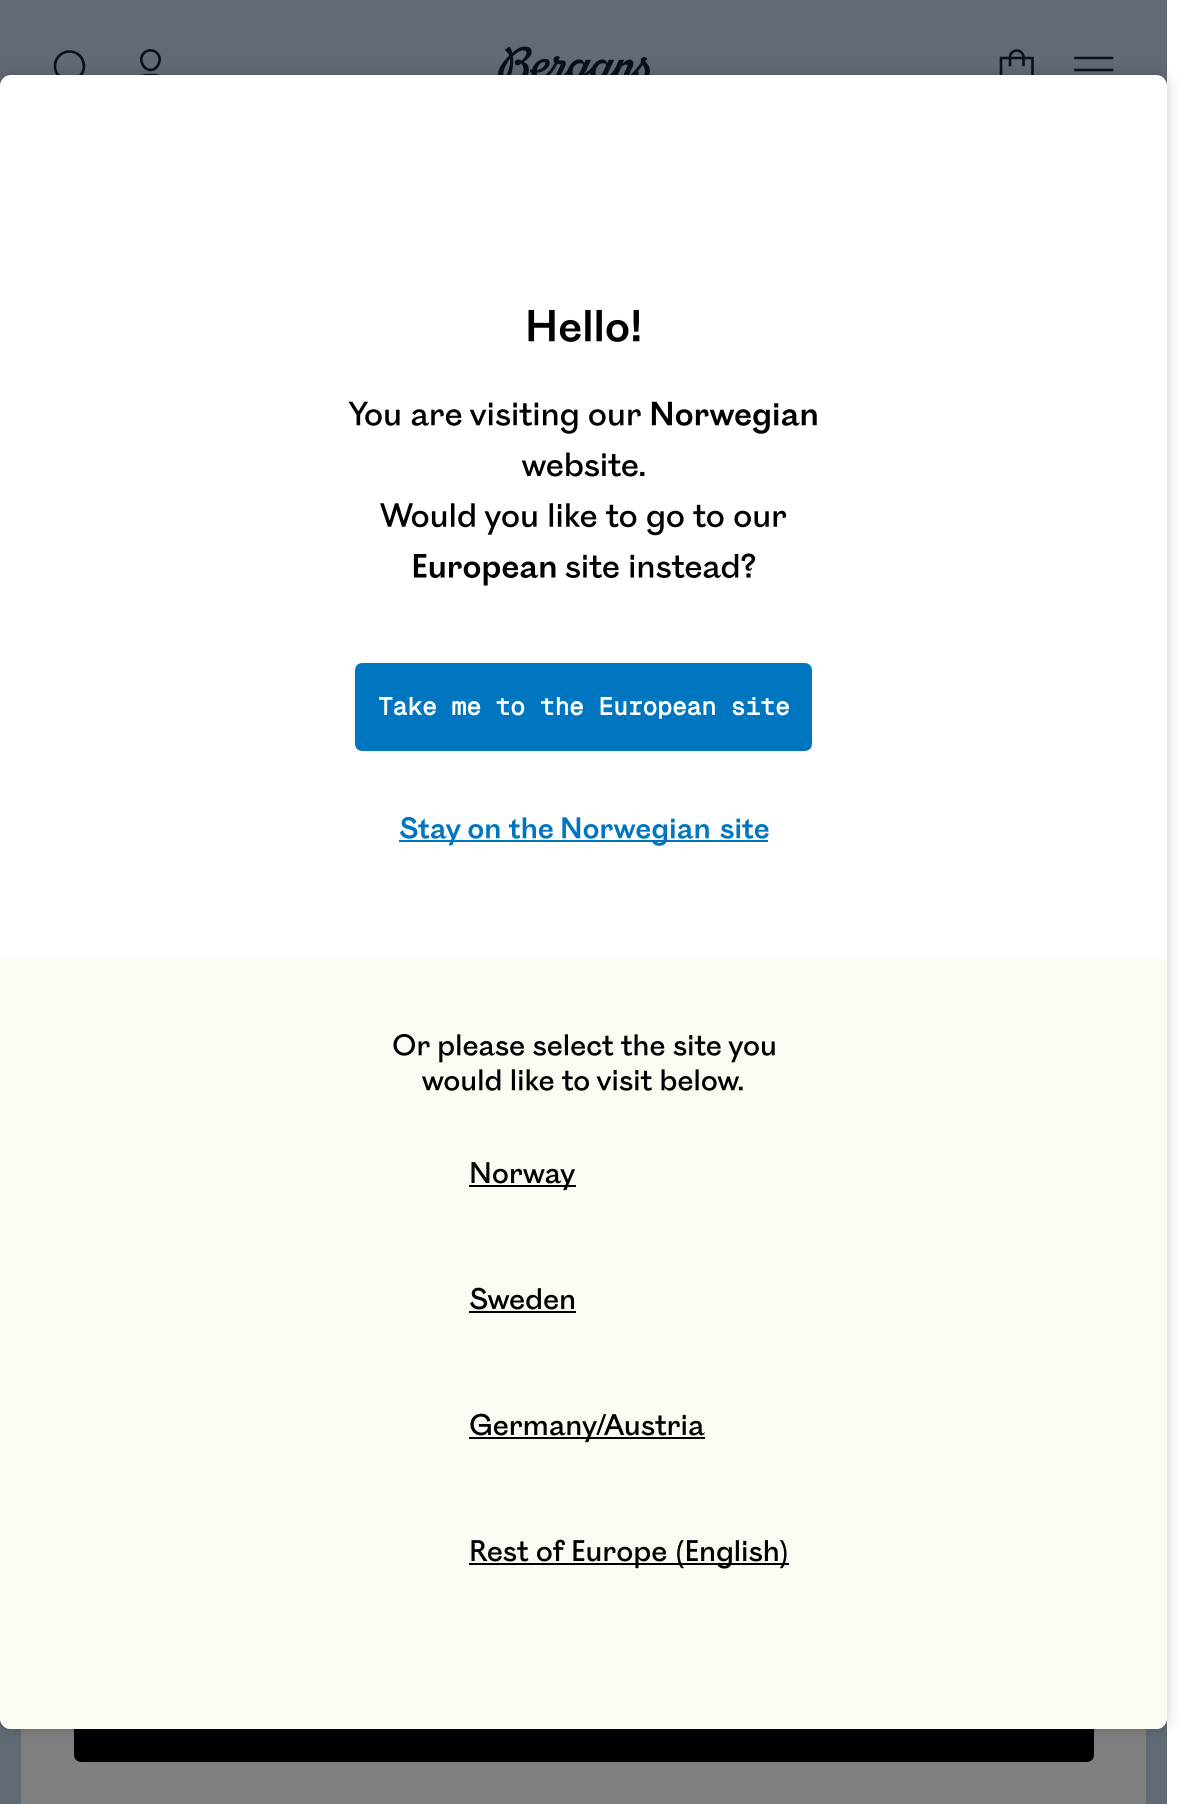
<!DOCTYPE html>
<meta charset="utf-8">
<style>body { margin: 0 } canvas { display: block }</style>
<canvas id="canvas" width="1192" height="1804"></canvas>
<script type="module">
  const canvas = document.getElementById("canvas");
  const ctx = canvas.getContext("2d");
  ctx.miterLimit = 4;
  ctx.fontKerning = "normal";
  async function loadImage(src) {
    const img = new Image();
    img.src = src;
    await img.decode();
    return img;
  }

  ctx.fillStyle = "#ffffff";
  ctx.fillRect(0, 0, 1192, 1804);
  ctx.fillStyle = "#616b75";
  ctx.fillRect(0, 1718, 1167, 86);
  ctx.fillRect(0, 0, 1167, 86);
  ctx.beginPath();
  ctx.moveTo(90.5, 87);
  ctx.lineTo(80, 76.5);
  ctx.strokeStyle = "#08121b";
  ctx.lineWidth = 2.6;
  ctx.lineCap = "square";
  ctx.stroke();
  ctx.beginPath();
  ctx.arc(69.5, 66, 14.5, 0, Math.PI * 2);
  ctx.stroke();
  ctx.drawImage(await loadImage("img1.png"), 140, 49, 21, 26);
  ctx.drawImage(await loadImage("img2.png"), 498, 46, 152, 29);
  ctx.beginPath();
  ctx.moveTo(1032.5, 89.5);
  ctx.lineTo(1001, 89.5);
  ctx.lineTo(1001, 58);
  ctx.lineTo(1032.5, 58);
  ctx.closePath();
  ctx.moveTo(1010, 65);
  ctx.lineTo(1010, 57);
  ctx.bezierCurveTo(1010, 53.5, 1013, 50.5, 1017, 50.5);
  ctx.bezierCurveTo(1020.5, 50.5, 1023.5, 53.5, 1023.5, 57);
  ctx.lineTo(1023.5, 65);
  ctx.stroke();
  ctx.beginPath();
  ctx.moveTo(1075.5, 70);
  ctx.lineTo(1112, 70);
  ctx.moveTo(1075.5, 58);
  ctx.lineTo(1112, 58);
  ctx.stroke();
  ctx.fillStyle = "#808080";
  ctx.fillRect(21, 1729, 1125, 75);
  ctx.fillStyle = "#000000";
  ctx.beginPath();
  ctx.roundRect(74, 1675, 1020, 87, 7);
  ctx.fill();
  ctx.fillStyle = "rgba(0, 0, 0, 0.2)";
  ctx.filter = "blur(7px)";
  ctx.beginPath();
  ctx.roundRect(0, 75, 1167, 1654, 11);
  ctx.fill();
  ctx.filter = "none";
  ctx.fillStyle = "#ffffff";
  ctx.beginPath();
  ctx.roundRect(0, 75, 1167, 1654, 11);
  ctx.fill();
  ctx.drawImage(await loadImage("img3.png"), 528, 309, 112, 33);
  ctx.drawImage(await loadImage("img4.png"), 348, 401, 293, 33);
  ctx.drawImage(await loadImage("img5.png"), 651, 401, 166, 33);
  ctx.drawImage(await loadImage("img6.png"), 521, 452, 124, 25);
  ctx.drawImage(await loadImage("img7.png"), 380, 503, 304, 33);
  ctx.drawImage(await loadImage("img8.png"), 693, 504, 93, 24);
  ctx.drawImage(await loadImage("img9.png"), 413, 554, 143, 32);
  ctx.drawImage(await loadImage("img10.png"), 565, 553, 191, 25);
  ctx.fillStyle = "#0076c0";
  ctx.beginPath();
  ctx.roundRect(355, 663, 457, 88, 7);
  ctx.fill();
  ctx.font = "bold 24.5px Geist Mono";
  ctx.fillStyle = "#ffffff";
  ctx.fillText("Take me to the European site", 378, 715);
  ctx.fillStyle = "#0076c0";
  ctx.fillRect(399, 840, 369, 2);
  ctx.drawImage(await loadImage("img11.png"), 400, 816, 153, 30);
  ctx.drawImage(await loadImage("img12.png"), 562, 817, 147, 29);
  ctx.drawImage(await loadImage("img13.png"), 720, 818, 49, 21);
  ctx.fillStyle = "#fcfaf3";
  ctx.beginPath();
  ctx.roundRect(0, 959, 1167, 770, [0, 0, 11, 11]);
  ctx.fill();
  ctx.drawImage(await loadImage("img14.png"), 393, 1033, 382, 30);
  ctx.drawImage(await loadImage("img15.png"), 422, 1069, 321, 22);
  ctx.fillStyle = "#000000";
  ctx.fillRect(469, 1185, 107, 2);
  ctx.drawImage(await loadImage("img16.png"), 471, 1162, 104, 29);
  ctx.drawImage(await loadImage("img17.png"), 470, 1287, 105, 23);
  ctx.fillRect(469, 1311, 107, 2);
  ctx.fillRect(469, 1437, 236, 2);
  ctx.drawImage(await loadImage("img18.png"), 470, 1413, 235, 30);
  ctx.fillRect(469, 1563, 320, 2);
  ctx.drawImage(await loadImage("img19.png"), 471, 1539, 316, 30);
</script>
